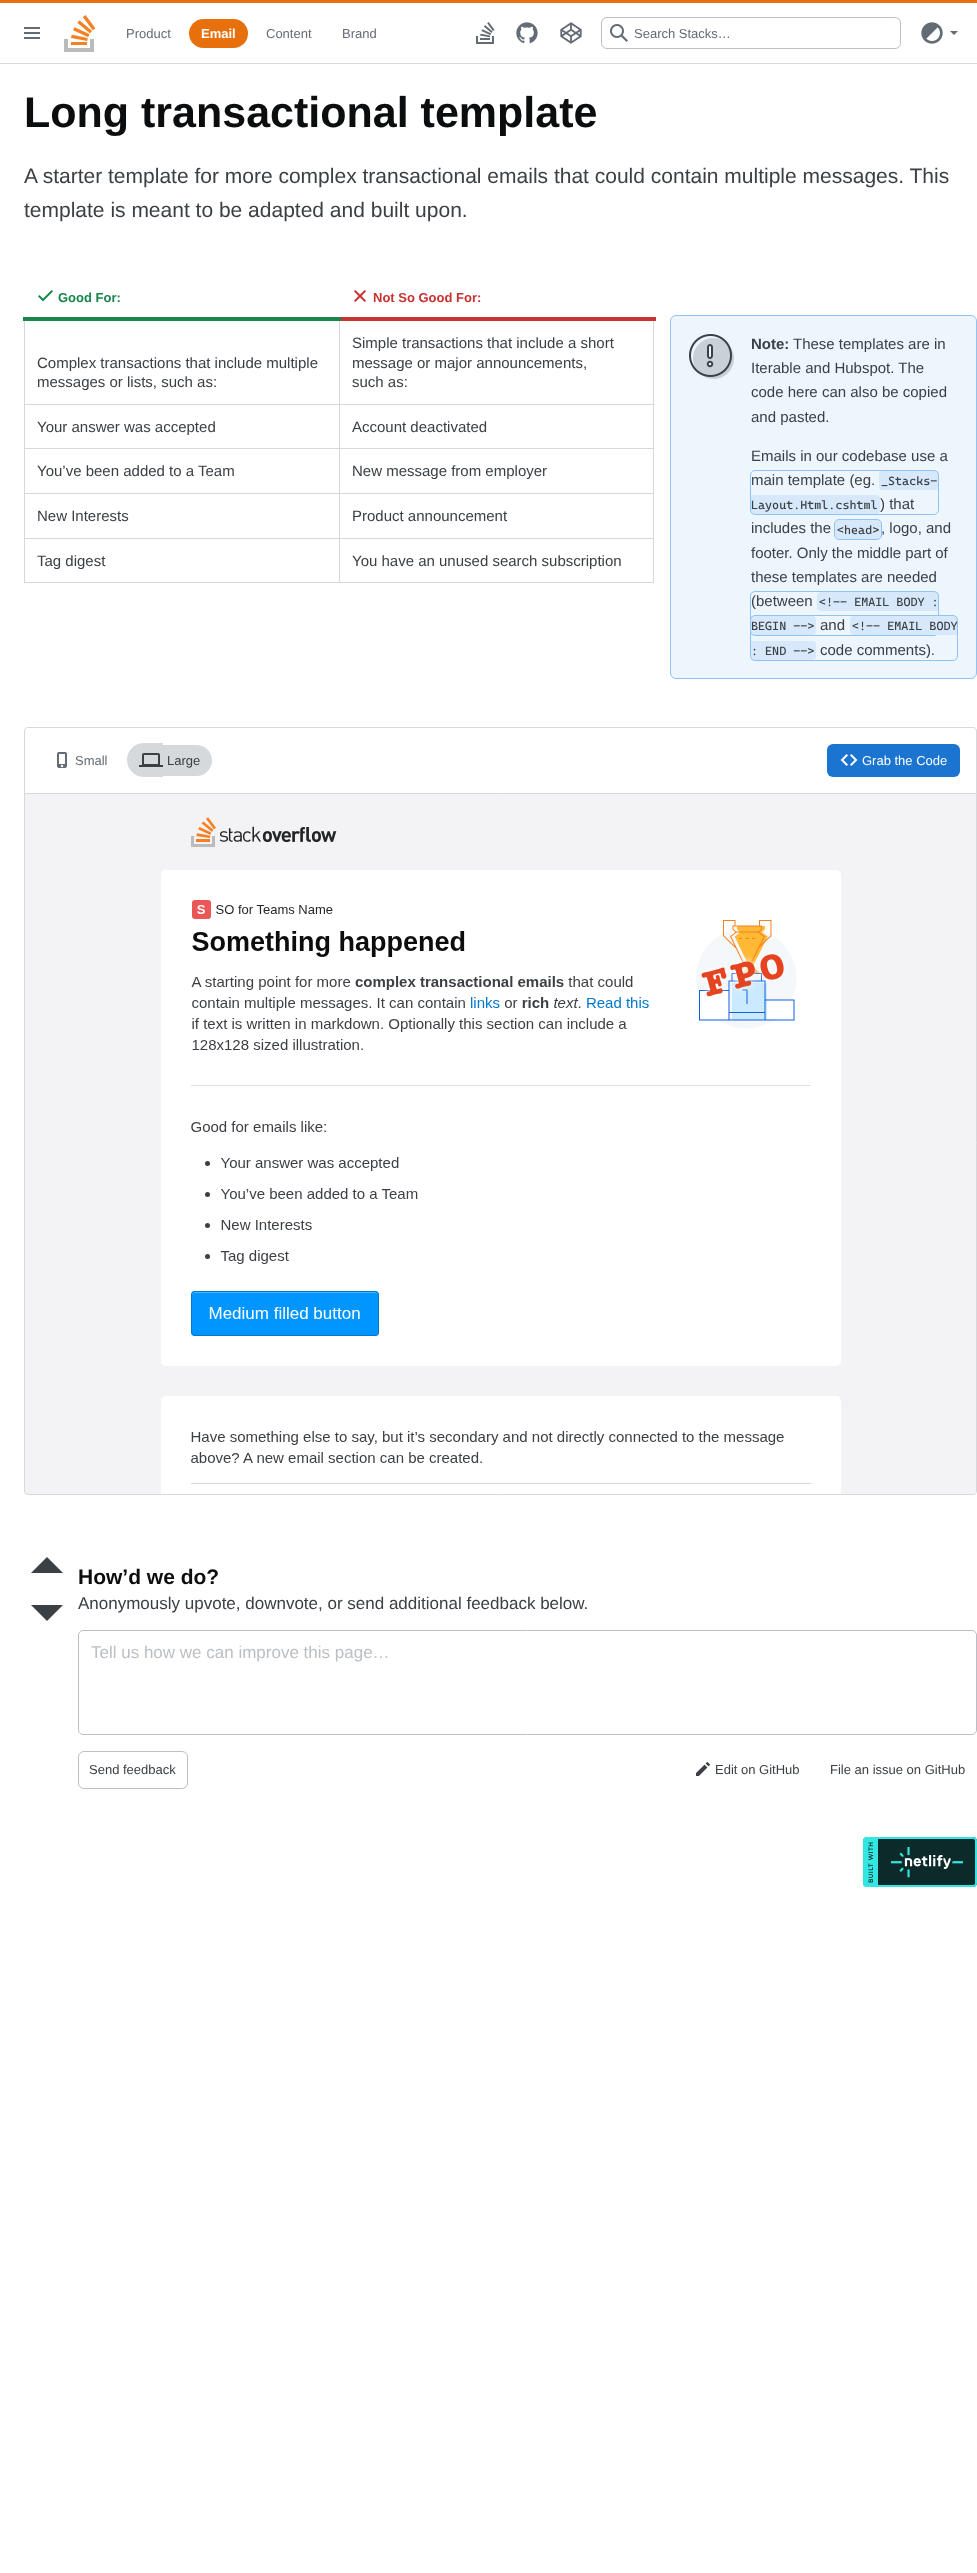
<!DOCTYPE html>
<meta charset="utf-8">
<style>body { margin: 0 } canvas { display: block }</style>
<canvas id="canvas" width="977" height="2573"></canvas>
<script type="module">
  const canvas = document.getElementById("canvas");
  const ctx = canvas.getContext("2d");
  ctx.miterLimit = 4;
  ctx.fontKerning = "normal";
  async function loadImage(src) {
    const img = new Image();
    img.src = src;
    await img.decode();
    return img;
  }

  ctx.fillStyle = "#ffffff";
  ctx.fillRect(0, 0, 977, 2573);
  ctx.fillStyle = "#e7700d";
  ctx.fillRect(0, 0, 977, 3);
  ctx.fillStyle = "#d6d9dc";
  ctx.fillRect(0, 63, 977, 1);
  ctx.fillStyle = "#636b74";
  ctx.fillRect(24, 32, 16, 2);
  ctx.fillRect(24, 27, 16, 2);
  ctx.fillRect(24, 37, 16, 2);
  ctx.drawImage(await loadImage("img1.png"), 64, 15, 32, 37);
  ctx.font = "13px Liberation Sans";
  ctx.fillText("Product", 126, 38);
  ctx.fillStyle = "#e7700d";
  ctx.beginPath();
  ctx.roundRect(189, 19, 59, 29, 14.5);
  ctx.fill();
  ctx.font = "bold 13px Liberation Sans";
  ctx.fillStyle = "#ffffff";
  ctx.fillText("Email", 201, 38);
  ctx.font = "13px Liberation Sans";
  ctx.fillStyle = "#636b74";
  ctx.fillText("Content", 266, 38);
  ctx.fillText("Brand", 342, 38);
  ctx.drawImage(await loadImage("img2.png"), 476, 22, 19, 22);
  ctx.drawImage(await loadImage("img3.png"), 516, 22, 22, 22);
  ctx.drawImage(await loadImage("img4.png"), 560, 22, 22, 22);
  ctx.beginPath();
  ctx.roundRect(601.5, 17.5, 299, 31, 5.5);
  ctx.strokeStyle = "#babfc5";
  ctx.stroke();
  ctx.drawImage(await loadImage("img5.png"), 610, 24, 18, 18);
  ctx.fillText("Search Stacks…", 634, 38);
  ctx.drawImage(await loadImage("img6.png"), 921, 22, 22, 22);
  ctx.beginPath();
  ctx.moveTo(950, 31);
  ctx.lineTo(958, 31);
  ctx.lineTo(954, 35);
  ctx.closePath();
  ctx.fill();
  ctx.font = "bold 43px Liberation Sans";
  ctx.fillStyle = "#0c0d0e";
  ctx.fillText("Long transactional template", 24, 127);
  ctx.font = "21px Liberation Sans";
  ctx.fillStyle = "#3b4045";
  ctx.fillText("A starter template for more complex transactional emails that could contain multiple messages. This", 24, 183);
  ctx.fillText("template is meant to be adapted and built upon.", 24, 217);
  ctx.fillStyle = "#d6d9dc";
  ctx.fillRect(339, 404, 315, 1);
  ctx.fillRect(339, 448, 315, 1);
  ctx.fillRect(339, 493, 315, 1);
  ctx.fillRect(339, 538, 315, 1);
  ctx.fillRect(653, 538, 1, 45);
  ctx.fillRect(339, 582, 315, 1);
  ctx.fillRect(339, 538, 1, 45);
  ctx.fillRect(24, 538, 316, 1);
  ctx.fillRect(339, 493, 1, 46);
  ctx.fillRect(24, 493, 316, 1);
  ctx.fillRect(339, 448, 1, 46);
  ctx.fillRect(24, 448, 316, 1);
  ctx.fillRect(339, 404, 1, 45);
  ctx.fillRect(24, 404, 316, 1);
  ctx.fillRect(339, 318, 1, 87);
  ctx.fillRect(653, 493, 1, 46);
  ctx.fillRect(653, 448, 1, 46);
  ctx.fillRect(653, 318, 1, 131);
  ctx.fillStyle = "#c83232";
  ctx.fillRect(337, 317, 319, 4);
  ctx.fillStyle = "#d6d9dc";
  ctx.fillRect(24, 582, 316, 1);
  ctx.fillRect(24, 538, 1, 45);
  ctx.fillRect(24, 493, 1, 46);
  ctx.fillRect(24, 448, 1, 46);
  ctx.fillRect(24, 318, 1, 131);
  ctx.fillStyle = "#18864b";
  ctx.fillRect(23, 317, 318, 4);
  ctx.drawImage(await loadImage("img7.png"), 38, 290, 15, 12);
  ctx.font = "bold 13px Liberation Sans";
  ctx.fillText("Good For:", 58, 302);
  ctx.drawImage(await loadImage("img8.png"), 354, 290, 12, 12);
  ctx.fillStyle = "#c83232";
  ctx.fillText("Not So Good For:", 373, 302);
  ctx.font = "15px Liberation Sans";
  ctx.fillStyle = "#3b4045";
  ctx.fillText("Complex transactions that include multiple", 37, 368);
  ctx.fillText("messages or lists, such as:", 37, 387);
  ctx.fillText("Simple transactions that include a short", 352, 348);
  ctx.fillText("message or major announcements,", 352, 368);
  ctx.fillText("such as:", 352, 387);
  ctx.fillText("Your answer was accepted", 37, 432);
  ctx.fillText("Account deactivated", 352, 432);
  ctx.fillText("You’ve been added to a Team", 37, 476);
  ctx.fillText("New message from employer", 352, 476);
  ctx.fillText("New Interests", 37, 521);
  ctx.fillText("Product announcement", 352, 521);
  ctx.fillText("Tag digest", 37, 566);
  ctx.fillText("You have an unused search subscription", 352, 566);
  ctx.fillStyle = "#edf5fd";
  ctx.beginPath();
  ctx.roundRect(670.5, 315.5, 306, 363, 5.5);
  ctx.fill();
  ctx.strokeStyle = "#92c2f2";
  ctx.stroke();
  ctx.drawImage(await loadImage("img9.png"), 689, 334, 45, 45);
  ctx.font = "bold 15px Liberation Sans";
  ctx.fillStyle = "#3b4045";
  ctx.fillText("Note:", 751, 349);
  ctx.font = "15px Liberation Sans";
  ctx.fillText("These templates are in", 793, 349);
  ctx.fillText("Iterable and Hubspot. The", 751, 373);
  ctx.fillText("code here can also be copied", 751, 397);
  ctx.fillText("and pasted.", 751, 422);
  ctx.fillText("Emails in our codebase use a", 751, 461);
  ctx.fillText("main template (eg.", 751, 485);
  ctx.fillStyle = "#d6e8fa";
  ctx.beginPath();
  ctx.roundRect(879, 471, 59, 19, [4, 0, 0, 4]);
  ctx.fill();
  ctx.font = "12px Cascadia Mono";
  ctx.fillStyle = "#3b4045";
  ctx.fillText("_Stacks-", 881, 485);
  ctx.fillStyle = "#d6e8fa";
  ctx.beginPath();
  ctx.roundRect(751, 495, 129, 19, [0, 4, 4, 0]);
  ctx.fill();
  ctx.beginPath();
  ctx.roundRect(750.5, 470.5, 188, 44, 4.5);
  ctx.stroke();
  ctx.fillStyle = "#3b4045";
  ctx.fillText("Layout.Html.cshtml", 751, 509);
  ctx.font = "15px Liberation Sans";
  ctx.fillText(") that", 880, 509);
  ctx.fillText("includes the", 751, 533);
  ctx.fillStyle = "#d6e8fa";
  ctx.beginPath();
  ctx.roundRect(835, 520, 46, 19, 4);
  ctx.fill();
  ctx.font = "12px Cascadia Mono";
  ctx.fillStyle = "#3b4045";
  ctx.fillText("<head>", 837, 534);
  ctx.beginPath();
  ctx.roundRect(834.5, 519.5, 47, 20, 4.5);
  ctx.stroke();
  ctx.font = "15px Liberation Sans";
  ctx.fillText(", logo, and", 881, 533);
  ctx.fillText("footer. Only the middle part of", 751, 558);
  ctx.fillText("these templates are needed", 751, 582);
  ctx.fillText("(between", 751, 606);
  ctx.fillStyle = "#d6e8fa";
  ctx.beginPath();
  ctx.roundRect(817, 592, 121, 19, [4, 0, 0, 4]);
  ctx.fill();
  ctx.font = "12px Cascadia Mono";
  ctx.fillStyle = "#3b4045";
  ctx.fillText("<\!-- EMAIL BODY :", 819, 606);
  ctx.fillStyle = "#d6e8fa";
  ctx.beginPath();
  ctx.roundRect(751, 616, 65, 19, [0, 4, 4, 0]);
  ctx.fill();
  ctx.beginPath();
  ctx.roundRect(750.5, 591.5, 188, 44, 4.5);
  ctx.stroke();
  ctx.fillStyle = "#3b4045";
  ctx.fillText("BEGIN -->", 751, 630);
  ctx.font = "15px Liberation Sans";
  ctx.fillText("and", 820, 630);
  ctx.fillStyle = "#d6e8fa";
  ctx.beginPath();
  ctx.roundRect(850, 616, 107, 19, [4, 0, 0, 4]);
  ctx.fill();
  ctx.font = "12px Cascadia Mono";
  ctx.fillStyle = "#3b4045";
  ctx.fillText("<\!-- EMAIL BODY", 852, 630);
  ctx.fillStyle = "#d6e8fa";
  ctx.beginPath();
  ctx.roundRect(751, 641, 65, 19, [0, 4, 4, 0]);
  ctx.fill();
  ctx.beginPath();
  ctx.roundRect(750.5, 615.5, 207, 45, 4.5);
  ctx.stroke();
  ctx.fillStyle = "#3b4045";
  ctx.fillText(": END -->", 751, 655);
  ctx.font = "15px Liberation Sans";
  ctx.fillText("code comments).", 820, 655);
  ctx.fillStyle = "#d6d9dc";
  ctx.beginPath();
  ctx.moveTo(28, 727);
  ctx.lineTo(973, 727);
  ctx.bezierCurveTo(975, 727, 977, 729, 977, 731);
  ctx.lineTo(977, 793);
  ctx.lineTo(24, 793);
  ctx.lineTo(24, 731);
  ctx.bezierCurveTo(24, 729, 26, 727, 28, 727);
  ctx.closePath();
  ctx.moveTo(28, 728);
  ctx.lineTo(973, 728);
  ctx.bezierCurveTo(975, 728, 976, 729, 976, 731);
  ctx.lineTo(976, 793);
  ctx.lineTo(25, 793);
  ctx.lineTo(25, 731);
  ctx.bezierCurveTo(25, 729, 26, 728, 28, 728);
  ctx.closePath();
  ctx.fill("evenodd");
  ctx.drawImage(await loadImage("img10.png"), 57, 752, 10, 16);
  ctx.font = "13px Liberation Sans";
  ctx.fillStyle = "#636b74";
  ctx.fillText("Small", 75, 765);
  ctx.fillStyle = "#d6d9dc";
  ctx.beginPath();
  ctx.roundRect(127, 743, 36, 34, [17, 0, 0, 17]);
  ctx.fill();
  ctx.drawImage(await loadImage("img11.png"), 139, 753, 24, 14);
  ctx.beginPath();
  ctx.roundRect(163, 745, 49, 31, [0, 15.5, 15.5, 0]);
  ctx.fill();
  ctx.fillStyle = "#3b4045";
  ctx.fillText("Large", 167, 765);
  ctx.fillStyle = "#1b75d0";
  ctx.beginPath();
  ctx.roundRect(827, 744, 133, 33, 6);
  ctx.fill();
  ctx.drawImage(await loadImage("img12.png"), 840, 754, 18, 12);
  ctx.fillStyle = "#ffffff";
  ctx.fillText("Grab the Code", 862, 765);
  ctx.drawImage(await loadImage("img13.png"), 25, 1490, 951, 5);
  ctx.beginPath();
  ctx.roundRect(24.5, 793.5, 952, 701, [0, 0, 3.5, 3.5]);
  ctx.strokeStyle = "#d6d9dc";
  ctx.stroke();
  ctx.drawImage(await loadImage("img14.png"), 25, 794, 951, 700);
  ctx.fillStyle = "#3b4045";
  ctx.beginPath();
  ctx.moveTo(31, 1573);
  ctx.lineTo(63, 1573);
  ctx.lineTo(47, 1557);
  ctx.closePath();
  ctx.fill();
  ctx.beginPath();
  ctx.moveTo(31, 1605);
  ctx.lineTo(63, 1605);
  ctx.lineTo(47, 1621);
  ctx.closePath();
  ctx.fill();
  ctx.font = "bold 21px Liberation Sans";
  ctx.fillStyle = "#0c0d0e";
  ctx.fillText("How’d we do?", 78, 1584);
  ctx.font = "17px Liberation Sans";
  ctx.fillStyle = "#3b4045";
  ctx.fillText("Anonymously upvote, downvote, or send additional feedback below.", 78, 1609);
  ctx.beginPath();
  ctx.roundRect(78.5, 1630.5, 898, 104, 4.5);
  ctx.strokeStyle = "#babfc5";
  ctx.stroke();
  ctx.fillStyle = "#babfc5";
  ctx.fillText("Tell us how we can improve this page…", 91, 1658);
  ctx.beginPath();
  ctx.roundRect(78.5, 1751.5, 109, 37, 5.5);
  ctx.stroke();
  ctx.font = "13px Liberation Sans";
  ctx.fillStyle = "#3b4045";
  ctx.fillText("Send feedback", 89, 1774);
  ctx.drawImage(await loadImage("img15.png"), 696, 1762, 14, 14);
  ctx.fillText("Edit on GitHub", 715, 1774);
  ctx.fillText("File an issue on GitHub", 830, 1774);
  ctx.drawImage(await loadImage("img16.png"), 863, 1837, 114, 50);
</script>
